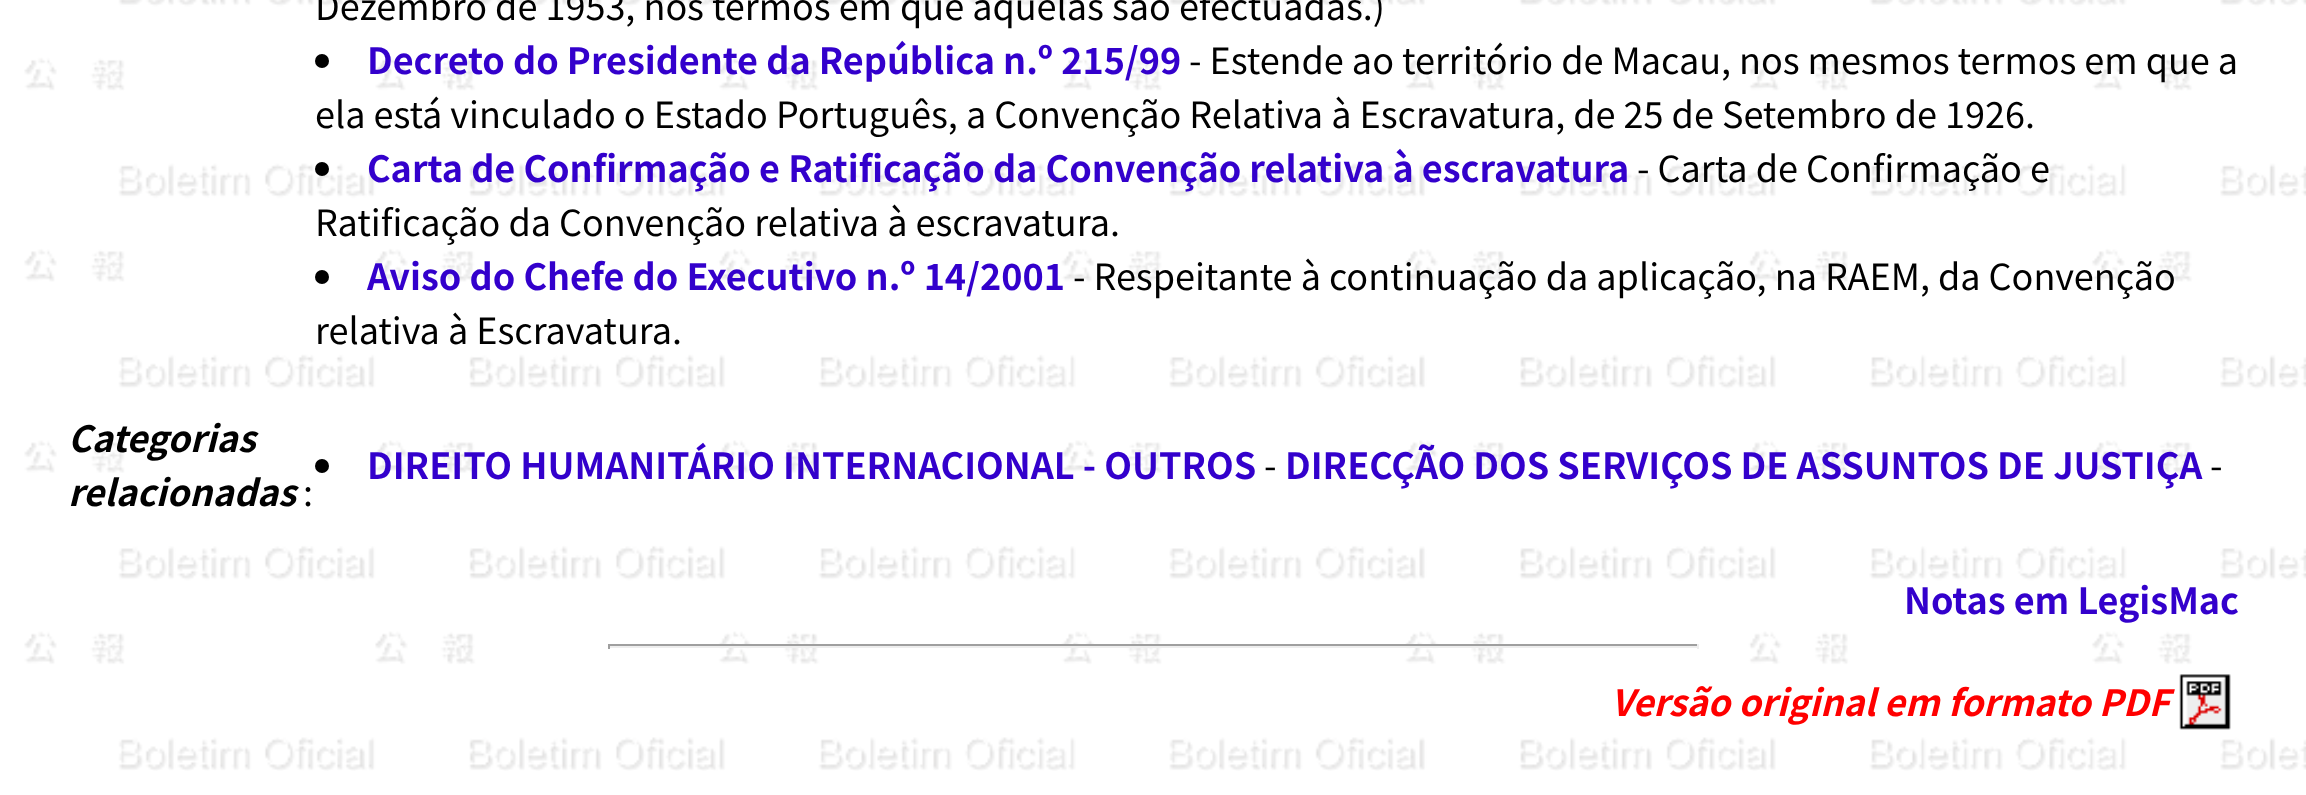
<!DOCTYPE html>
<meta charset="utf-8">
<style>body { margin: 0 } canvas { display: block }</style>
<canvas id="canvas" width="2306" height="795"></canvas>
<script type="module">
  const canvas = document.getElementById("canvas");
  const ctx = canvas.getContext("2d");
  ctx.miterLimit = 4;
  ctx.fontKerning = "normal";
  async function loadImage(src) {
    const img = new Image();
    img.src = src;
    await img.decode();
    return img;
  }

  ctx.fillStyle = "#ffffff";
  ctx.fillRect(0, 0, 2306, 795);
  ctx.drawImage(await loadImage("img1.png"), 24, 0, 2282, 771);
  ctx.font = "36px Noto Sans TC";
  ctx.fillStyle = "#000000";
  ctx.fillText("Dezembro de 1953, nos termos em que aquelas são efectuadas.)", 315, 20);
  ctx.beginPath();
  ctx.arc(322, 61, 7, 0, Math.PI * 2);
  ctx.fill();
  ctx.font = "bold 36px Noto Sans TC";
  ctx.fillStyle = "#3300cc";
  ctx.fillText("Decreto do Presidente da República n.º 215/99", 367, 74);
  ctx.font = "36px Noto Sans TC";
  ctx.fillStyle = "#000000";
  ctx.fillText("- Estende ao território de Macau, nos mesmos termos em que a", 1189, 74);
  ctx.fillText("ela está vinculado o Estado Português, a Convenção Relativa à Escravatura, de 25 de Setembro de 1926.", 315, 128);
  ctx.beginPath();
  ctx.arc(322, 169, 7, 0, Math.PI * 2);
  ctx.fill();
  ctx.font = "bold 36px Noto Sans TC";
  ctx.fillStyle = "#3300cc";
  ctx.fillText("Carta de Confirmação e Ratificação da Convenção relativa à escravatura", 367, 182);
  ctx.font = "36px Noto Sans TC";
  ctx.fillStyle = "#000000";
  ctx.fillText("- Carta de Confirmação e", 1637, 182);
  ctx.fillText("Ratificação da Convenção relativa à escravatura.", 315, 236);
  ctx.beginPath();
  ctx.arc(322, 277, 7, 0, Math.PI * 2);
  ctx.fill();
  ctx.font = "bold 36px Noto Sans TC";
  ctx.fillStyle = "#3300cc";
  ctx.fillText("Aviso do Chefe do Executivo n.º 14/2001", 367, 290);
  ctx.font = "36px Noto Sans TC";
  ctx.fillStyle = "#000000";
  ctx.fillText("- Respeitante à continuação da aplicação, na RAEM, da Convenção", 1073, 290);
  ctx.fillText("relativa à Escravatura.", 315, 344);
  ctx.font = "italic bold 36px Noto Sans TC";
  ctx.fillText("Categorias", 68, 452);
  ctx.fillText("relacionadas", 68, 506);
  ctx.font = "36px Noto Sans TC";
  ctx.fillText(":", 303, 506);
  ctx.beginPath();
  ctx.arc(322, 466, 7, 0, Math.PI * 2);
  ctx.fill();
  ctx.font = "bold 36px Noto Sans TC";
  ctx.fillStyle = "#3300cc";
  ctx.fillText("DIREITO HUMANITÁRIO INTERNACIONAL - OUTROS", 367, 479);
  ctx.font = "36px Noto Sans TC";
  ctx.fillStyle = "#000000";
  ctx.fillText("-", 1264, 479);
  ctx.font = "bold 36px Noto Sans TC";
  ctx.fillStyle = "#3300cc";
  ctx.fillText("DIRECÇÃO DOS SERVIÇOS DE ASSUNTOS DE JUSTIÇA", 1285, 479);
  ctx.font = "36px Noto Sans TC";
  ctx.fillStyle = "#000000";
  ctx.fillText("-", 2210, 479);
  ctx.font = "bold 36px Noto Sans TC";
  ctx.fillStyle = "#3300cc";
  ctx.fillText("Notas em LegisMac", 1904, 614);
  ctx.fillStyle = "#9f9f9f";
  ctx.fillRect(608, 644, 1091, 2);
  ctx.fillStyle = "#eeeeee";
  ctx.fillRect(1697, 644, 2, 5);
  ctx.fillRect(608, 646, 1091, 2);
  ctx.fillStyle = "#9f9f9f";
  ctx.fillRect(608, 644, 2, 5);
  ctx.font = "italic bold 36px Noto Sans TC";
  ctx.fillStyle = "#ff0000";
  ctx.fillText("Versão original em formato PDF", 1611, 716);
  ctx.drawImage(await loadImage("img2.png"), 2179, 674, 52, 56);
</script>
